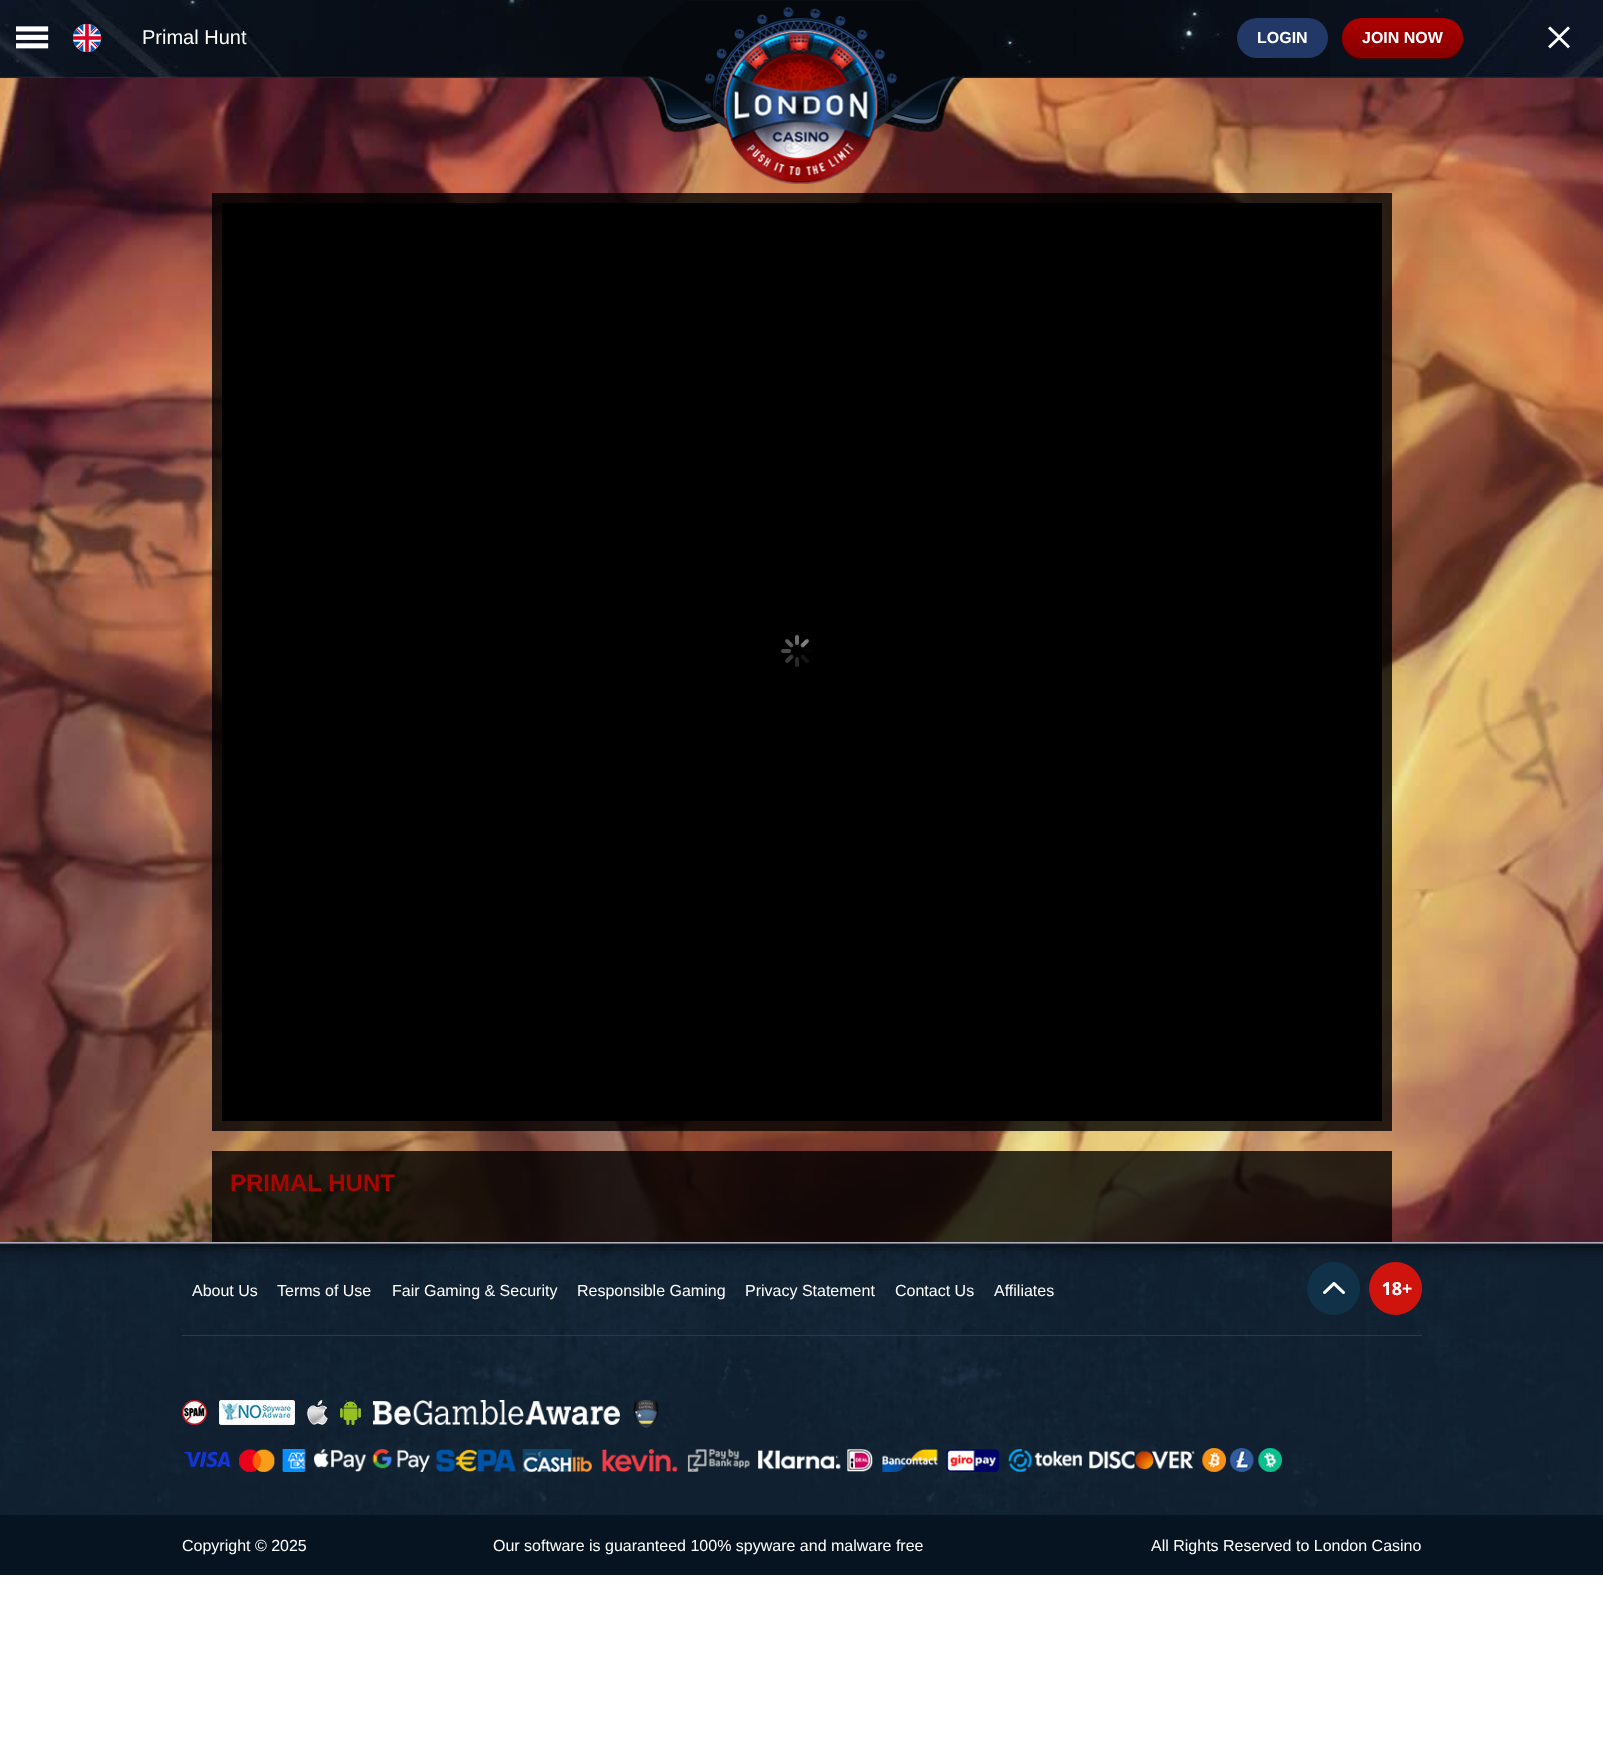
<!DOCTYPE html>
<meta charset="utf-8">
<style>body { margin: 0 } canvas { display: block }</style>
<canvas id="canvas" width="1603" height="1739"></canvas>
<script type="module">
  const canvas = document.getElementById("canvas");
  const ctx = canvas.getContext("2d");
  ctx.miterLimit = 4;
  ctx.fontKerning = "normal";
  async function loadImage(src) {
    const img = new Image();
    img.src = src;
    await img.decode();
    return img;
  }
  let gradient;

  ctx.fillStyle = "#ffffff";
  ctx.fillRect(0, 0, 1603, 1739);
  ctx.drawImage(await loadImage("img1.png"), 0, 78, 1603, 1164);
  ctx.drawImage(await loadImage("img3.png"), 0, 0, 1603, 78);
  ctx.font = "20px Liberation Sans";
  ctx.fillText("Primal Hunt", 142, 44);
  ctx.drawImage(await loadImage("img2.png"), 1548, 26, 22, 23);
  ctx.drawImage(await loadImage("img4.png"), 622, 1, 360, 148);
  ctx.drawImage(await loadImage("img5.png"), 702, 7, 200, 177);
  ctx.drawImage(await loadImage("img6.png"), 16, 26, 33, 23);
  ctx.drawImage(await loadImage("img7.png"), 73, 24, 28, 28);
  ctx.fillStyle = "#223867";
  ctx.beginPath();
  ctx.roundRect(1237, 18, 91, 40, 20);
  ctx.fill();
  ctx.font = "bold 16px Liberation Sans";
  ctx.fillStyle = "#ffffff";
  ctx.fillText("LOGIN", 1257, 43);
  ctx.fillStyle = "#440000";
  ctx.filter = "blur(0.5px)";
  ctx.beginPath();
  ctx.roundRect(1342, 20, 121, 40, 20);
  ctx.fill();
  ctx.filter = "none";
  gradient = ctx.createLinearGradient(1403, 18, 1403, 58);
  gradient.addColorStop(0, "#a80101");
  gradient.addColorStop(0.03, "#ac0000");
  gradient.addColorStop(0.13, "#aa0000");
  gradient.addColorStop(1, "#860000");
  ctx.fillStyle = gradient;
  ctx.beginPath();
  ctx.roundRect(1342, 18, 121, 40, 20);
  ctx.fill();
  ctx.fillStyle = "#ffffff";
  ctx.fillText("JOIN NOW", 1362, 43);
  ctx.fillStyle = "rgba(0, 0, 0, 0.8)";
  ctx.fillRect(212, 193, 1180, 938);
  ctx.drawImage(await loadImage("img8.png"), 222, 203, 1160, 900);
  ctx.fillStyle = "#000000";
  ctx.fillRect(222, 1103, 1160, 18);
  ctx.fillStyle = "rgba(0, 0, 0, 0.8)";
  ctx.fillRect(212, 1151, 1180, 91);
  ctx.font = "bold 24px Liberation Sans";
  ctx.fillStyle = "#a80602";
  ctx.fillText("PRIMAL HUNT", 230, 1191);
  ctx.drawImage(await loadImage("img9.png"), 0, 1243, 1603, 272);
  ctx.fillStyle = "#b0adc0";
  ctx.fillRect(0, 1242, 1603, 1);
  ctx.fillStyle = "#233c54";
  ctx.fillRect(182, 1335, 1240, 1);
  ctx.font = "16px Liberation Sans";
  ctx.fillStyle = "#ffffff";
  ctx.fillText("About Us", 192, 1296);
  ctx.fillText("Terms of Use", 277, 1296);
  ctx.fillText("Fair Gaming & Security", 392, 1296);
  ctx.fillText("Responsible Gaming", 577, 1296);
  ctx.fillText("Privacy Statement", 745, 1296);
  ctx.fillText("Contact Us", 895, 1296);
  ctx.fillText("Affiliates", 994, 1296);
  ctx.drawImage(await loadImage("img10.png"), 1307, 1262, 53, 53);
  ctx.drawImage(await loadImage("img11.png"), 1369, 1262, 53, 53);
  ctx.drawImage(await loadImage("img12.png"), 182, 1400, 25, 25);
  ctx.drawImage(await loadImage("img13.png"), 219, 1400, 76, 25);
  ctx.drawImage(await loadImage("img14.png"), 307, 1400, 21, 25);
  ctx.drawImage(await loadImage("img15.png"), 340, 1400, 21, 25);
  ctx.drawImage(await loadImage("img16.png"), 373, 1400, 247, 25);
  ctx.drawImage(await loadImage("img17.png"), 633, 1400, 26, 28);
  ctx.drawImage(await loadImage("img18.png"), 183, 1448, 1099, 24);
  ctx.fillStyle = "#061422";
  ctx.fillRect(0, 1515, 1603, 60);
  ctx.fillStyle = "#ffffff";
  ctx.fillText("Copyright © 2025", 182, 1551);
  ctx.fillText("Our software is guaranteed 100% spyware and malware free", 493, 1551);
  ctx.fillText("All Rights Reserved to London Casino", 1151, 1551);
</script>
